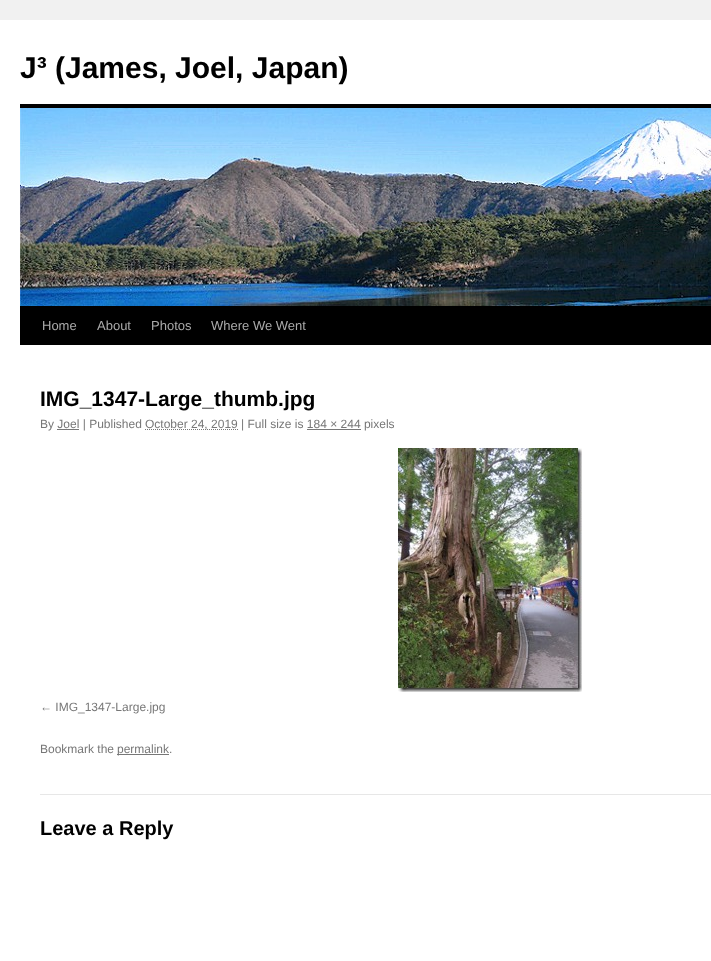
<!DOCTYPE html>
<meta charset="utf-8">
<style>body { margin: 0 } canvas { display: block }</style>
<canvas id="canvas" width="711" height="961"></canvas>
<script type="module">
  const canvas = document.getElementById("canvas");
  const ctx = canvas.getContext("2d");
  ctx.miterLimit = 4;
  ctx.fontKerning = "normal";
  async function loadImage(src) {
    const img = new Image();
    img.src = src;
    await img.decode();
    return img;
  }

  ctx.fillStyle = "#f1f1f1";
  ctx.fillRect(0, 0, 711, 961);
  ctx.fillStyle = "#ffffff";
  ctx.fillRect(0, 20, 711, 941);
  ctx.font = "bold 30px Liberation Sans";
  ctx.fillStyle = "#000000";
  ctx.fillText("J³ (James, Joel, Japan)", 20, 78);
  ctx.fillRect(20, 104, 691, 4);
  ctx.fillRect(20, 306, 691, 39);
  ctx.drawImage(await loadImage("img1.png"), 20, 108, 691, 198);
  ctx.font = "13px Liberation Sans";
  ctx.fillStyle = "#aaaaaa";
  ctx.fillText("Home", 42, 330);
  ctx.fillText("About", 97, 330);
  ctx.fillText("Photos", 151, 330);
  ctx.fillText("Where We Went", 211, 330);
  ctx.font = "bold 21px Liberation Sans";
  ctx.fillStyle = "#000000";
  ctx.fillText("IMG_1347-Large_thumb.jpg", 40, 406);
  ctx.font = "12px Liberation Sans";
  ctx.fillStyle = "#777777";
  ctx.fillText("By Joel | Published", 40, 428);
  ctx.beginPath();
  ctx.moveTo(145, 429.5);
  ctx.lineTo(238, 429.5);
  ctx.strokeStyle = "#777777";
  ctx.setLineDash([1, 1]);
  ctx.stroke();
  ctx.fillText("October 24, 2019 | Full size is 184 × 244 pixels", 145, 428);
  ctx.fillRect(57, 429, 22, 1);
  ctx.fillRect(307, 429, 54, 1);
  ctx.drawImage(await loadImage("img2.png"), 398, 448, 184, 244);
  ctx.fillText("← IMG_1347-Large.jpg", 40, 711);
  ctx.fillText("Bookmark the", 40, 753);
  ctx.fillRect(117, 754, 52, 1);
  ctx.fillText("permalink.", 117, 753);
  ctx.fillStyle = "#e7e7e7";
  ctx.fillRect(40, 794, 671, 1);
  ctx.font = "bold 20px Liberation Sans";
  ctx.fillStyle = "#000000";
  ctx.fillText("Leave a Reply", 40, 835);
</script>
